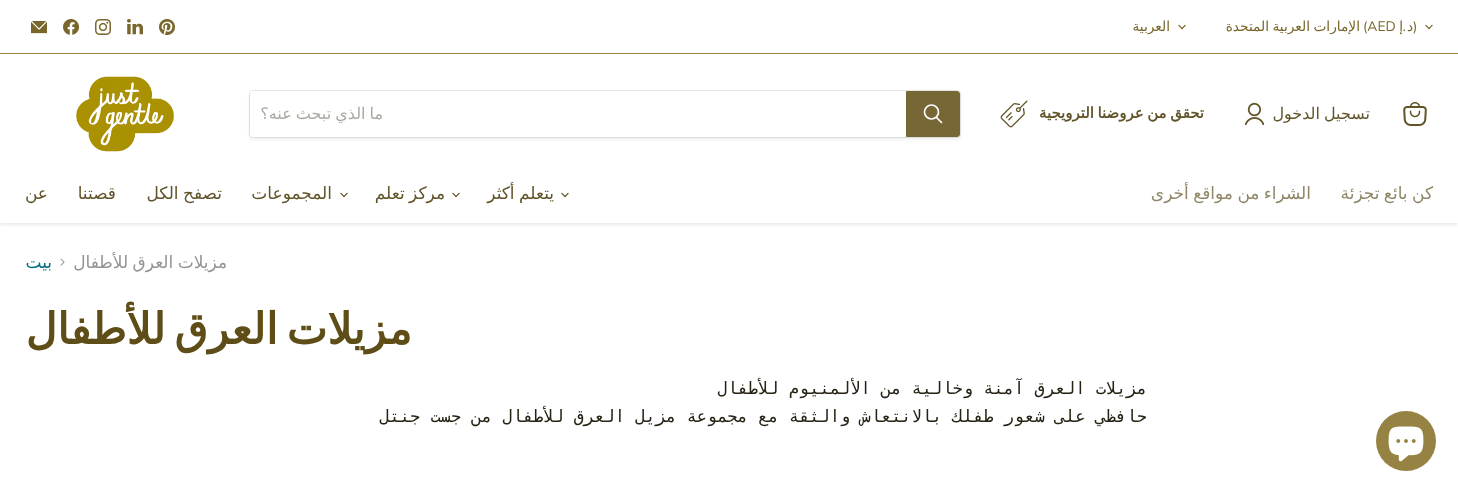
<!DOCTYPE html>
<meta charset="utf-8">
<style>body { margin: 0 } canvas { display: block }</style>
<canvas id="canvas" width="1458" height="492"></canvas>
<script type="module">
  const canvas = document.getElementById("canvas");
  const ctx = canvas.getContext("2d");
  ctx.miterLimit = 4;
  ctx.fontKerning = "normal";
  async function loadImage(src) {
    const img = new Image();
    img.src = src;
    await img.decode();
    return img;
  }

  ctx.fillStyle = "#ffffff";
  ctx.fillRect(0, 0, 1458, 492);
  ctx.save();
  ctx.beginPath();
  ctx.rect(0, 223, 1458, 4);
  ctx.clip();
  ctx.fillStyle = "rgba(128, 128, 128, 0.25)";
  ctx.filter = "blur(2px)";
  ctx.beginPath();
  ctx.rect(0, 55, 1458, 169);
  ctx.fill();
  ctx.filter = "none";
  ctx.restore();
  ctx.fillRect(2, 52, 1454, 1);
  ctx.fillStyle = "#968344";
  ctx.fillRect(0, 53, 1458, 1);
  ctx.drawImage(await loadImage("img1.png"), 1425, 24, 8, 6);
  ctx.font = "13.75px Nunito Sans";
  ctx.fillStyle = "#78662a";
  ctx.fillText(")", 1413, 31);
  ctx.direction = "rtl";
  ctx.font = "13.75px DejaVu Sans";
  ctx.fillText("د", 1413, 31);
  ctx.font = "13.75px Nunito Sans";
  ctx.fillText(".", 1406, 31);
  ctx.font = "13.75px DejaVu Sans";
  ctx.fillText("إ", 1403, 31);
  ctx.direction = "ltr";
  ctx.font = "13.75px Nunito Sans";
  ctx.fillText("(AED", 1363, 31);
  ctx.wordSpacing = "-1px";
  ctx.direction = "rtl";
  ctx.font = "13.75px DejaVu Sans";
  ctx.fillText("الإمارات العربية المتحدة", 1360, 31);
  ctx.drawImage(await loadImage("img1.png"), 1178, 24, 8, 6);
  ctx.wordSpacing = "0px";
  ctx.fillText("العربية", 1170, 31);
  ctx.drawImage(await loadImage("img2.png"), 159, 19, 16, 16);
  ctx.drawImage(await loadImage("img3.png"), 127, 19, 16, 16);
  ctx.drawImage(await loadImage("img4.png"), 95, 19, 16, 16);
  ctx.drawImage(await loadImage("img5.png"), 63, 19, 16, 16);
  ctx.drawImage(await loadImage("img6.png"), 31, 21, 16, 13);
  ctx.drawImage(await loadImage("img7.png"), 1403, 102, 24, 24);
  ctx.wordSpacing = "-1px";
  ctx.font = "16px DejaVu Sans";
  ctx.fillStyle = "#615429";
  ctx.fillText("تسجيل الدخول", 1370, 119);
  ctx.drawImage(await loadImage("img8.png"), 1244, 102, 20, 24);
  ctx.font = "bold 14.9px DejaVu Sans";
  ctx.fillText("تحقق من عروضنا الترويجية", 1204, 118);
  ctx.drawImage(await loadImage("img9.png"), 1000, 100, 28, 28);
  ctx.fillStyle = "rgba(128, 128, 128, 0.11)";
  ctx.filter = "blur(1.5px)";
  ctx.beginPath();
  ctx.roundRect(249, 92, 712, 48, 4);
  ctx.fill();
  ctx.filter = "none";
  ctx.beginPath();
  ctx.roundRect(249.5, 90.5, 711, 47, 3.5);
  ctx.strokeStyle = "rgba(128, 128, 128, 0.2)";
  ctx.stroke();
  ctx.fillStyle = "#766734";
  ctx.beginPath();
  ctx.roundRect(906.5, 91.5, 53, 45, [0, 2.5, 2.5, 0]);
  ctx.fill();
  ctx.strokeStyle = "#766734";
  ctx.stroke();
  ctx.beginPath();
  ctx.moveTo(941.5, 122.5);
  ctx.lineTo(936.5, 117.5);
  ctx.strokeStyle = "#ffffff";
  ctx.lineWidth = 1.7;
  ctx.lineCap = "round";
  ctx.stroke();
  ctx.beginPath();
  ctx.arc(931.5, 112, 7, 0, Math.PI * 2);
  ctx.stroke();
  ctx.fillStyle = "#ffffff";
  ctx.beginPath();
  ctx.roundRect(250, 91, 656, 46, [3, 0, 0, 3]);
  ctx.fill();
  ctx.font = "16px DejaVu Sans";
  ctx.fillStyle = "#aba99f";
  ctx.fillText("ما الذي تبحث عنه؟", 383, 119);
  ctx.drawImage(await loadImage("img10.png"), 76, 76, 98, 76);
  ctx.font = "17px DejaVu Sans";
  ctx.fillStyle = "#908769";
  ctx.fillText("كن بائع تجزئة", 1433, 199);
  ctx.fillText("الشراء من مواقع أخرى", 1311, 199);
  ctx.drawImage(await loadImage("img11.png"), 561, 192, 8, 6);
  ctx.fillStyle = "#615429";
  ctx.fillText("يتعلم أكثر", 554, 199);
  ctx.drawImage(await loadImage("img11.png"), 452, 192, 8, 6);
  ctx.fillText("مركز تعلم", 445, 199);
  ctx.drawImage(await loadImage("img11.png"), 340, 192, 8, 6);
  ctx.wordSpacing = "0px";
  ctx.fillText("المجموعات", 332, 199);
  ctx.wordSpacing = "-1px";
  ctx.fillText("تصفح الكل", 222, 199);
  ctx.wordSpacing = "0px";
  ctx.fillText("قصتنا", 116, 199);
  ctx.fillText("عن", 48, 199);
  ctx.wordSpacing = "-1px";
  ctx.fillStyle = "#949494";
  ctx.fillText("مزيلات العرق للأطفال", 227, 268);
  ctx.drawImage(await loadImage("img12.png"), 60, 258, 5, 8);
  ctx.wordSpacing = "0px";
  ctx.fillStyle = "#046e82";
  ctx.fillText("بيت", 52, 268);
  ctx.wordSpacing = "-5px";
  ctx.font = "bold 43.25px DejaVu Sans";
  ctx.fillStyle = "#5e4d16";
  ctx.fillText("مزيلات العرق للأطفال", 412, 344);
  ctx.wordSpacing = "0px";
  ctx.font = "17px DejaVu Sans Mono";
  ctx.fillStyle = "#262214";
  ctx.fillText("مزيلات العرق آمنة وخالية من الألمنيوم للأطفال", 1147, 394);
  ctx.fillText("حافظي على شعور طفلك بالانتعاش والثقة مع مجموعة مزيل العرق للأطفال من جست جنتل", 1147, 422);
  ctx.fillStyle = "#968344";
  ctx.beginPath();
  ctx.arc(1406, 441, 30, 0, Math.PI * 2);
  ctx.fill();
  ctx.drawImage(await loadImage("img13.png"), 1388, 426, 36, 36);
</script>
